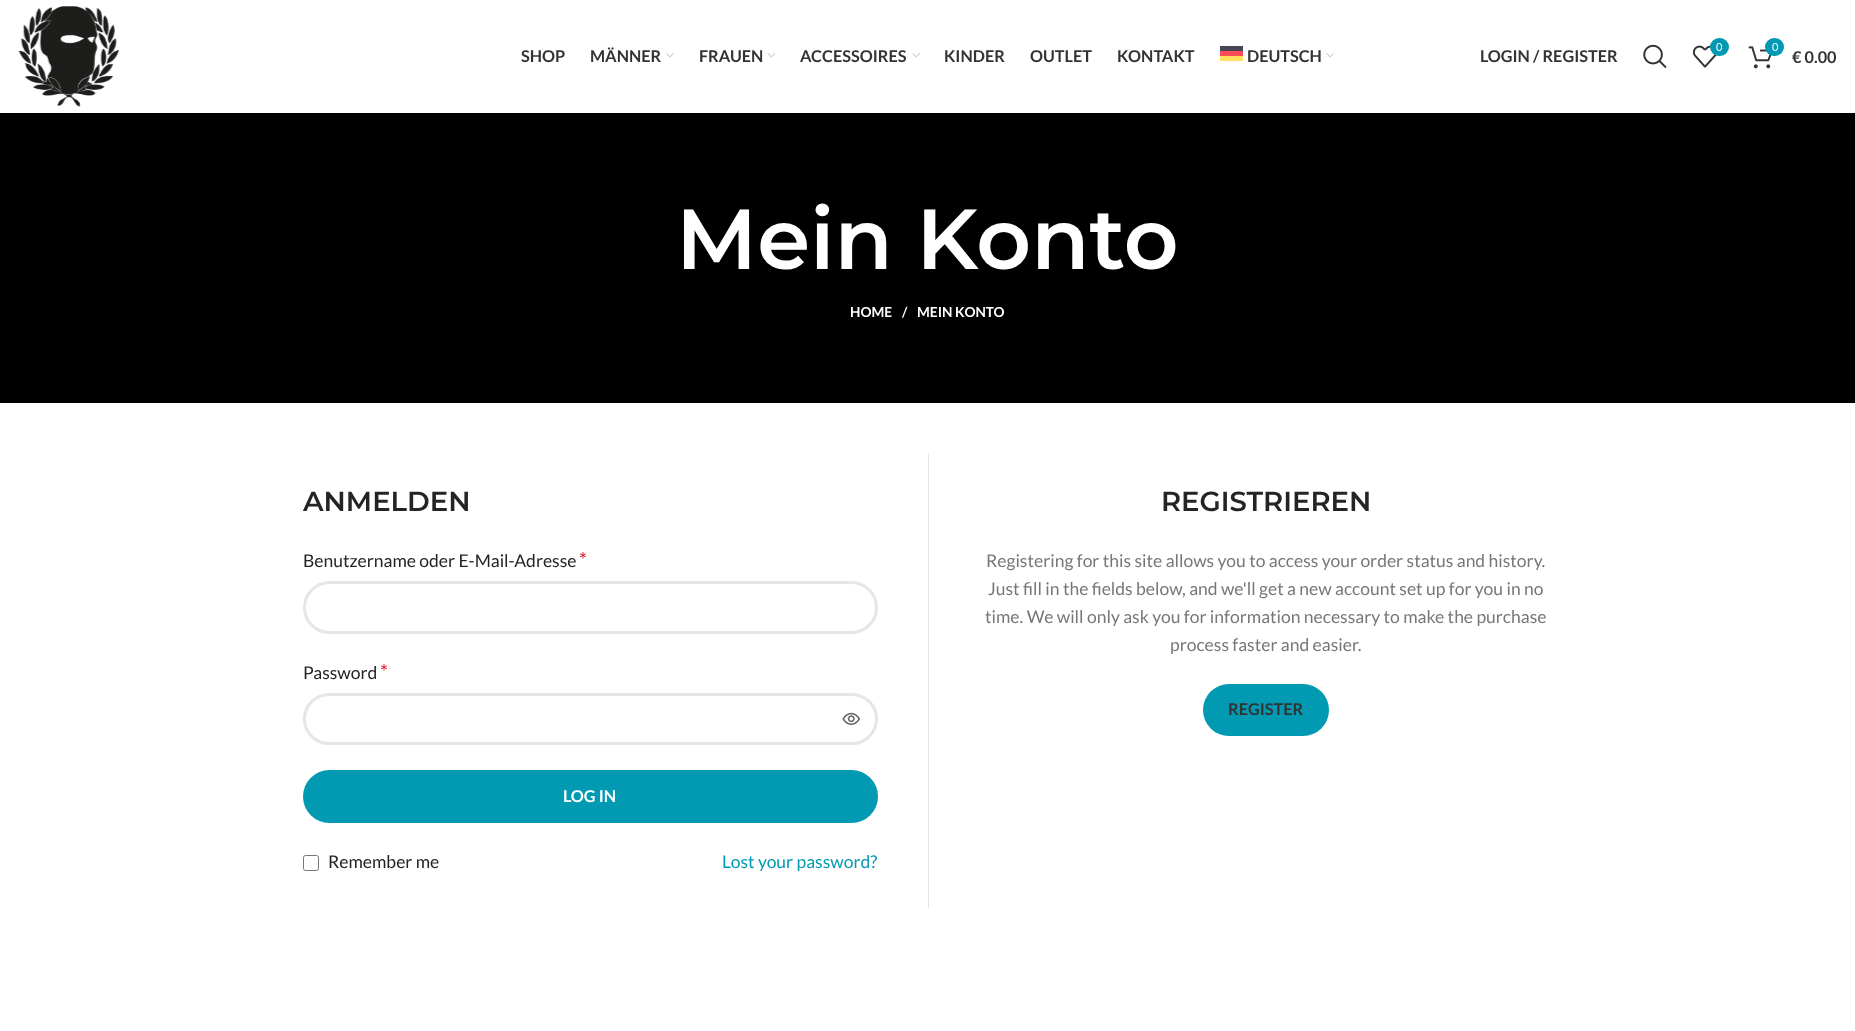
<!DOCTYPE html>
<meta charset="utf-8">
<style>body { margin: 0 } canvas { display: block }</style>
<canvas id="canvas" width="1855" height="1031"></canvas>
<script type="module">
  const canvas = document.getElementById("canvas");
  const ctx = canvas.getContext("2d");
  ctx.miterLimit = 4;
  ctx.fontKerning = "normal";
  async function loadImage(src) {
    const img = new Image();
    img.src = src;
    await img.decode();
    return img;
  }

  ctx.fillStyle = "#ffffff";
  ctx.fillRect(0, 0, 1855, 1031);
  ctx.drawImage(await loadImage("img1.png"), 18, 6, 101, 101);
  ctx.font = "bold 16.25px Lato";
  ctx.fillStyle = "#333333";
  ctx.fillText("SHOP", 521, 62);
  ctx.fillText("MÄNNER", 590, 62);
  ctx.drawImage(await loadImage("img2.png"), 666, 53, 8, 5);
  ctx.fillText("FRAUEN", 699, 62);
  ctx.drawImage(await loadImage("img3.png"), 767, 53, 8, 5);
  ctx.fillText("ACCESSOIRES", 800, 62);
  ctx.drawImage(await loadImage("img3.png"), 912, 53, 8, 5);
  ctx.fillText("KINDER", 944, 62);
  ctx.fillText("OUTLET", 1030, 62);
  ctx.fillText("KONTAKT", 1117, 62);
  ctx.fillStyle = "#464655";
  ctx.fillRect(1220, 46, 23, 5);
  ctx.fillStyle = "#ff4b55";
  ctx.fillRect(1220, 51, 23, 5);
  ctx.fillStyle = "#333333";
  ctx.fillText("DEUTSCH", 1247, 62);
  ctx.fillStyle = "#ffe15a";
  ctx.fillRect(1220, 56, 23, 5);
  ctx.drawImage(await loadImage("img2.png"), 1326, 53, 8, 5);
  ctx.fillStyle = "#333333";
  ctx.fillText("LOGIN / REGISTER", 1480, 62);
  ctx.drawImage(await loadImage("img4.png"), 1643, 44, 24, 25);
  ctx.drawImage(await loadImage("img5.png"), 1692, 45, 25, 23);
  ctx.fillStyle = "#019ab2";
  ctx.beginPath();
  ctx.roundRect(1710, 38, 19, 18, 9);
  ctx.fill();
  ctx.font = "11px Lato";
  ctx.fillStyle = "#ffffff";
  ctx.fillText("0", 1716, 51);
  ctx.drawImage(await loadImage("img6.png"), 1748, 46, 24, 23);
  ctx.fillStyle = "#019ab2";
  ctx.beginPath();
  ctx.roundRect(1765, 38, 19, 18, 9);
  ctx.fill();
  ctx.fillStyle = "#ffffff";
  ctx.fillText("0", 1772, 51);
  ctx.font = "bold 16.25px Lato";
  ctx.fillStyle = "#333333";
  ctx.fillText("€ 0.00", 1792, 63);
  ctx.fillStyle = "#000000";
  ctx.fillRect(0, 113, 1855, 290);
  ctx.font = "600 85px Montserrat";
  ctx.fillStyle = "#ffffff";
  ctx.fillText("Mein Konto", 676, 269);
  ctx.font = "bold 13.75px Lato";
  ctx.fillText("HOME", 850, 317);
  ctx.fillText("/", 902, 317);
  ctx.fillText("MEIN KONTO", 917, 317);
  ctx.font = "600 27.5px Montserrat";
  ctx.fillStyle = "#242424";
  ctx.fillText("ANMELDEN", 303, 511);
  ctx.font = "17.5px Lato";
  ctx.fillText("Benutzername oder E-Mail-Adresse", 303, 567);
  ctx.font = "20px Lato";
  ctx.fillStyle = "#e01020";
  ctx.fillText("*", 579, 567);
  ctx.beginPath();
  ctx.roundRect(304.5, 582.5, 572, 50, 25);
  ctx.strokeStyle = "#e6e6e6";
  ctx.lineWidth = 3;
  ctx.stroke();
  ctx.font = "17.5px Lato";
  ctx.fillStyle = "#242424";
  ctx.fillText("Password", 303, 679);
  ctx.font = "20px Lato";
  ctx.fillStyle = "#e01020";
  ctx.fillText("*", 380, 679);
  ctx.beginPath();
  ctx.roundRect(304.5, 694.5, 572, 49, 24.5);
  ctx.stroke();
  ctx.drawImage(await loadImage("img7.png"), 842, 712, 18, 13);
  ctx.fillStyle = "#019ab2";
  ctx.beginPath();
  ctx.roundRect(303, 770, 575, 53, 26.5);
  ctx.fill();
  ctx.font = "bold 16.25px Lato";
  ctx.fillStyle = "#ffffff";
  ctx.fillText("LOG IN", 563, 802);
  ctx.beginPath();
  ctx.roundRect(303.5, 855.5, 15, 15, 2);
  ctx.strokeStyle = "#767676";
  ctx.lineWidth = 1;
  ctx.stroke();
  ctx.font = "17.5px Lato";
  ctx.fillStyle = "#242424";
  ctx.fillText("Remember me", 328, 868);
  ctx.fillStyle = "#019ab2";
  ctx.fillText("Lost your password?", 722, 868);
  ctx.fillStyle = "#e4e4e4";
  ctx.fillRect(928, 453, 1, 455);
  ctx.font = "600 27.5px Montserrat";
  ctx.fillStyle = "#242424";
  ctx.fillText("REGISTRIEREN", 1161, 511);
  ctx.font = "17.5px Lato";
  ctx.fillStyle = "#777777";
  ctx.fillText("Registering for this site allows you to access your order status and history.", 986, 567);
  ctx.fillText("Just fill in the fields below, and we'll get a new account set up for you in no", 988, 595);
  ctx.fillText("time. We will only ask you for information necessary to make the purchase", 985, 623);
  ctx.fillText("process faster and easier.", 1170, 651);
  ctx.fillStyle = "#019ab2";
  ctx.beginPath();
  ctx.roundRect(1203, 684, 126, 52, 26);
  ctx.fill();
  ctx.font = "bold 16.25px Lato";
  ctx.fillStyle = "#333333";
  ctx.fillText("REGISTER", 1228, 715);
</script>
